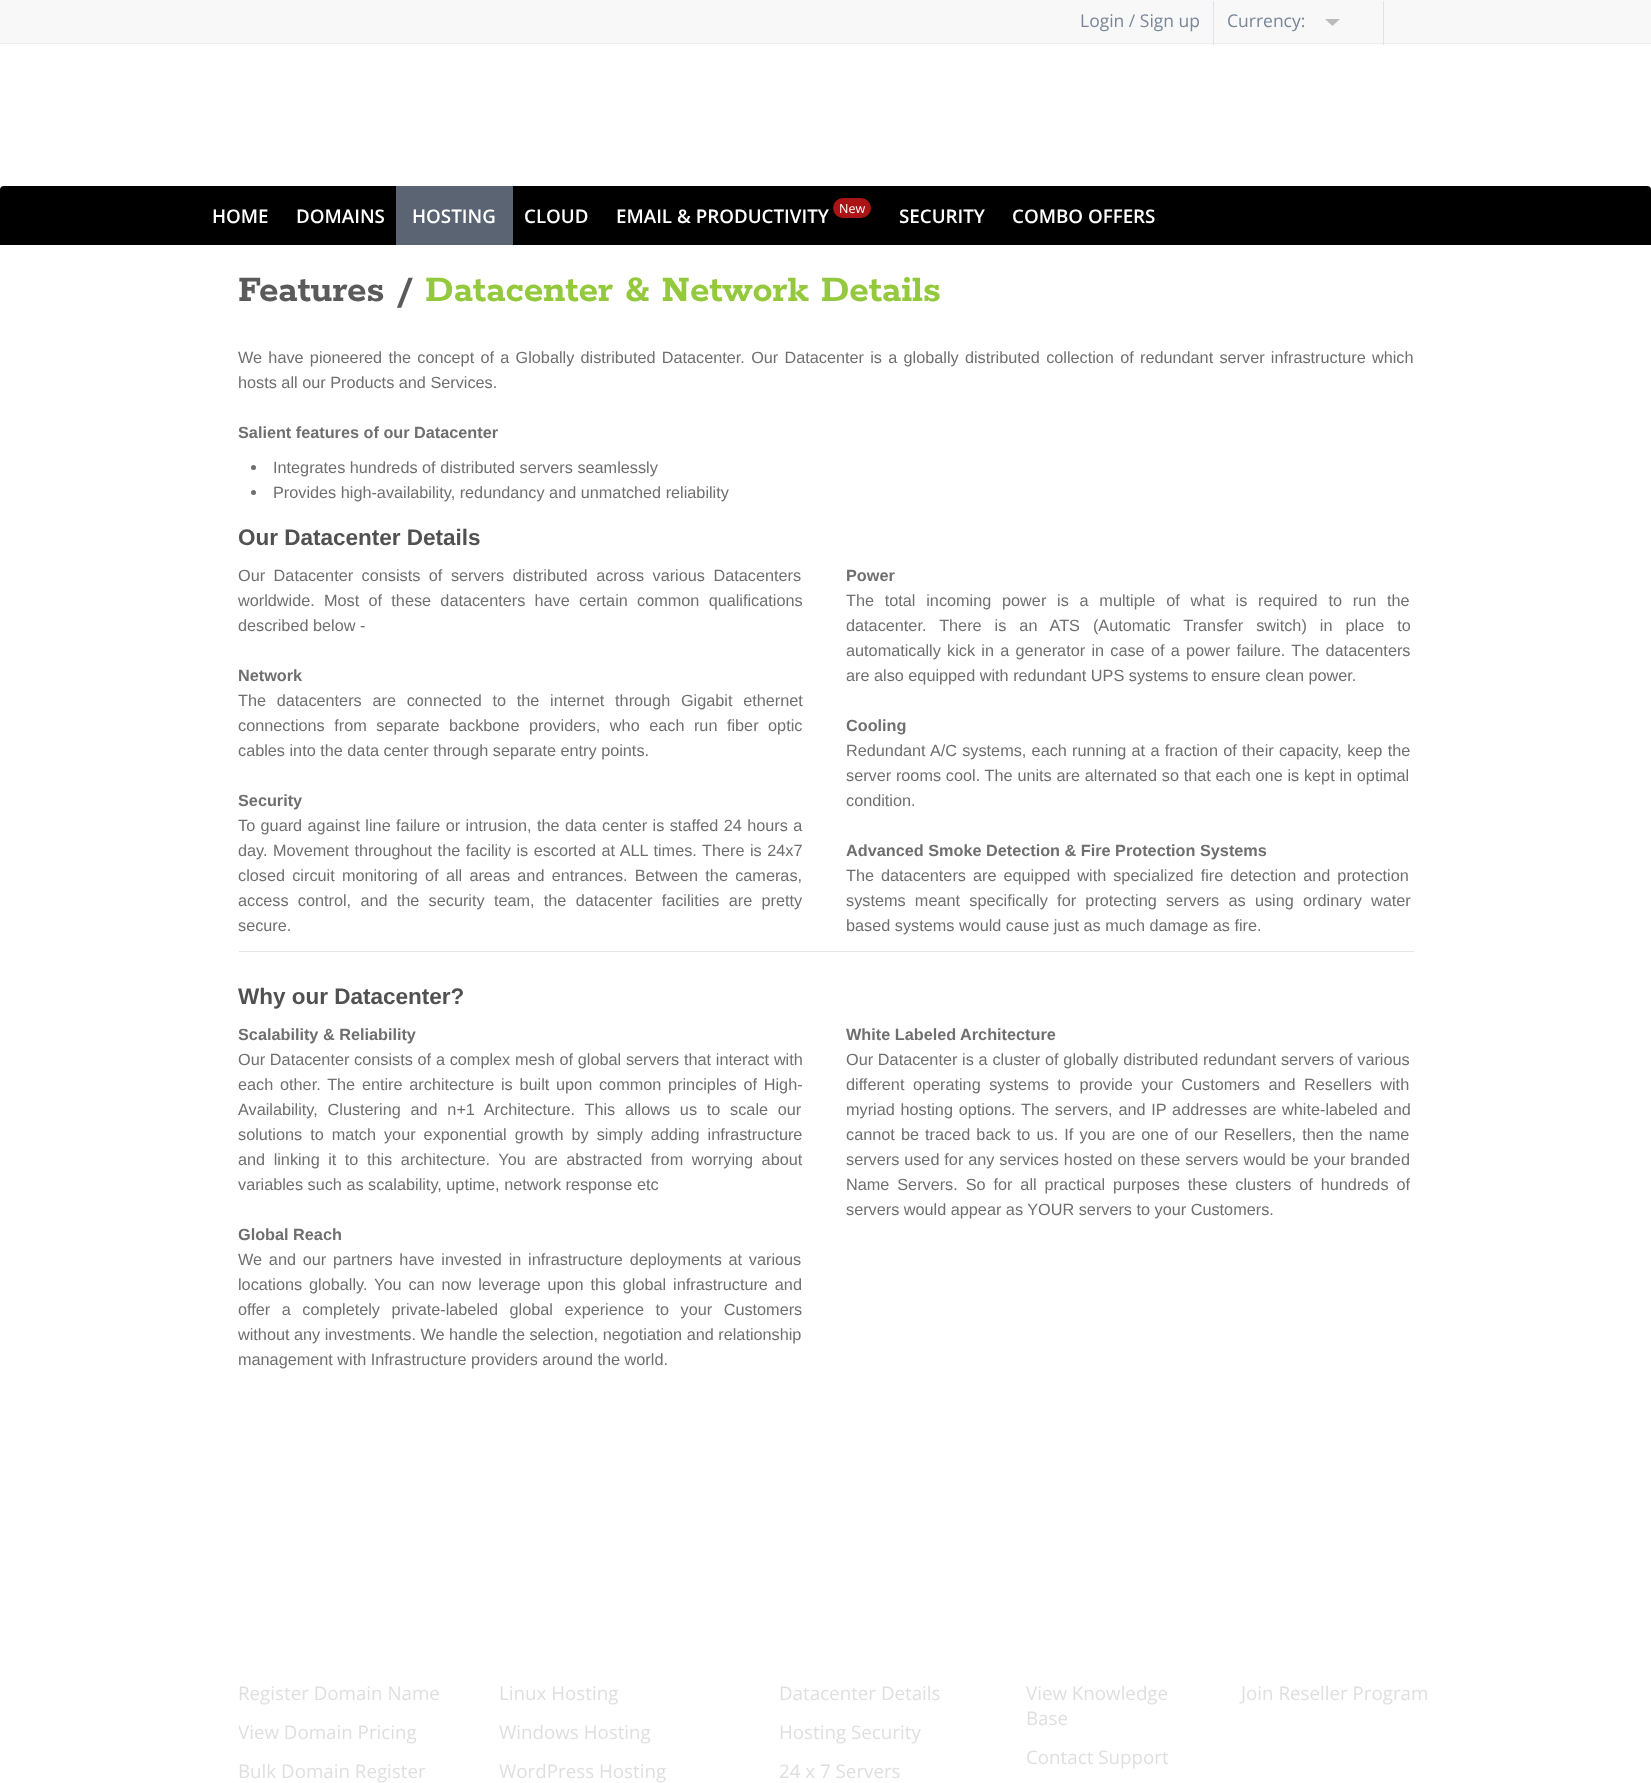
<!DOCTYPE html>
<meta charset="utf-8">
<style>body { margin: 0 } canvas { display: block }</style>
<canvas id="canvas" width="1651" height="1783"></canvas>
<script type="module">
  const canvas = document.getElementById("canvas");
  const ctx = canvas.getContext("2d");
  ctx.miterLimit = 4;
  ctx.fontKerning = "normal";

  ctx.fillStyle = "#ffffff";
  ctx.fillRect(0, 0, 1651, 1783);
  ctx.fillStyle = "#f8f8f8";
  ctx.fillRect(0, 0, 1651, 43);
  ctx.fillStyle = "#eeeeee";
  ctx.fillRect(0, 43, 1651, 1);
  ctx.fillStyle = "#dde3e9";
  ctx.fillRect(1213, 1, 1, 44);
  ctx.font = "17.5px Open Sans";
  ctx.fillStyle = "#788698";
  ctx.fillText("Login / Sign up", 1080, 27);
  ctx.fillStyle = "#dde3e9";
  ctx.fillRect(1383, 1, 1, 44);
  ctx.fillStyle = "#788698";
  ctx.fillText("Currency:", 1227, 27);
  ctx.fillStyle = "#bbbbbb";
  ctx.beginPath();
  ctx.moveTo(1325, 19);
  ctx.lineTo(1340, 19);
  ctx.lineTo(1332.5, 26);
  ctx.closePath();
  ctx.fill();
  ctx.fillStyle = "#000000";
  ctx.beginPath();
  ctx.roundRect(0, 186, 1651, 59, [4, 4, 0, 0]);
  ctx.fill();
  ctx.font = "600 18.75px Open Sans";
  ctx.fillStyle = "#ffffff";
  ctx.fillText("HOME", 212, 223);
  ctx.fillText("DOMAINS", 296, 223);
  ctx.fillStyle = "#5a6472";
  ctx.fillRect(396, 186, 117, 59);
  ctx.fillStyle = "#ffffff";
  ctx.fillText("HOSTING", 412, 223);
  ctx.fillText("CLOUD", 524, 223);
  ctx.fillText("EMAIL & PRODUCTIVITY", 616, 223);
  ctx.fillStyle = "#aa1414";
  ctx.beginPath();
  ctx.roundRect(833, 198, 38, 20, 10);
  ctx.fill();
  ctx.font = "12.5px Open Sans";
  ctx.fillStyle = "#ffffff";
  ctx.fillText("New", 839, 213);
  ctx.font = "600 18.75px Open Sans";
  ctx.fillText("SECURITY", 899, 223);
  ctx.fillText("COMBO OFFERS", 1012, 223);
  ctx.font = "bold 40px Rokkitt";
  ctx.fillStyle = "#5b5b5b";
  ctx.fillText("Features /", 238, 301);
  ctx.fillStyle = "#94c83d";
  ctx.fillText("Datacenter & Network Details", 425, 301);
  ctx.wordSpacing = "1.75px";
  ctx.font = "16.25px Liberation Sans";
  ctx.fillStyle = "#6f6f6f";
  ctx.fillText("We have pioneered the concept of a Globally distributed Datacenter. Our Datacenter is a globally distributed collection of redundant server infrastructure which", 238, 363);
  ctx.wordSpacing = "0px";
  ctx.fillText("hosts all our Products and Services.", 238, 388);
  ctx.font = "bold 16.25px Liberation Sans";
  ctx.fillText("Salient features of our Datacenter", 238, 438);
  ctx.beginPath();
  ctx.arc(253.5, 467.5, 2.5, 0, Math.PI * 2);
  ctx.fill();
  ctx.font = "16.25px Liberation Sans";
  ctx.fillText("Integrates hundreds of distributed servers seamlessly", 273, 473);
  ctx.beginPath();
  ctx.arc(253.5, 492.5, 2.5, 0, Math.PI * 2);
  ctx.fill();
  ctx.fillText("Provides high-availability, redundancy and unmatched reliability", 273, 498);
  ctx.font = "bold 22.5px Liberation Sans";
  ctx.fillStyle = "#515151";
  ctx.fillText("Our Datacenter Details", 238, 545);
  ctx.wordSpacing = "4px";
  ctx.font = "16.25px Liberation Sans";
  ctx.fillStyle = "#6f6f6f";
  ctx.fillText("Our Datacenter consists of servers distributed across various Datacenters", 238, 581);
  ctx.wordSpacing = "4.75px";
  ctx.fillText("worldwide. Most of these datacenters have certain common qualifications", 238, 606);
  ctx.wordSpacing = "0px";
  ctx.fillText("described below -", 238, 631);
  ctx.font = "bold 16.25px Liberation Sans";
  ctx.fillText("Network", 238, 681);
  ctx.wordSpacing = "6.25px";
  ctx.font = "16.25px Liberation Sans";
  ctx.fillText("The datacenters are connected to the internet through Gigabit ethernet", 238, 706);
  ctx.wordSpacing = "5px";
  ctx.fillText("connections from separate backbone providers, who each run fiber optic", 238, 731);
  ctx.wordSpacing = "0px";
  ctx.fillText("cables into the data center through separate entry points.", 238, 756);
  ctx.font = "bold 16.25px Liberation Sans";
  ctx.fillText("Security", 238, 806);
  ctx.wordSpacing = "0.9px";
  ctx.font = "16.25px Liberation Sans";
  ctx.fillText("To guard against line failure or intrusion, the data center is staffed 24 hours a", 238, 831);
  ctx.wordSpacing = "1px";
  ctx.fillText("day. Movement throughout the facility is escorted at ALL times. There is 24x7", 238, 856);
  ctx.wordSpacing = "2.75px";
  ctx.fillText("closed circuit monitoring of all areas and entrances. Between the cameras,", 238, 881);
  ctx.wordSpacing = "4.75px";
  ctx.fillText("access control, and the security team, the datacenter facilities are pretty", 238, 906);
  ctx.wordSpacing = "0px";
  ctx.fillText("secure.", 238, 931);
  ctx.font = "bold 16.25px Liberation Sans";
  ctx.fillText("Power", 846, 581);
  ctx.wordSpacing = "6.25px";
  ctx.font = "16.25px Liberation Sans";
  ctx.fillText("The total incoming power is a multiple of what is required to run the", 846, 606);
  ctx.wordSpacing = "8.5px";
  ctx.fillText("datacenter. There is an ATS (Automatic Transfer switch) in place to", 846, 631);
  ctx.wordSpacing = "1.75px";
  ctx.fillText("automatically kick in a generator in case of a power failure. The datacenters", 846, 656);
  ctx.wordSpacing = "0px";
  ctx.fillText("are also equipped with redundant UPS systems to ensure clean power.", 846, 681);
  ctx.font = "bold 16.25px Liberation Sans";
  ctx.fillText("Cooling", 846, 731);
  ctx.wordSpacing = "0.75px";
  ctx.font = "16.25px Liberation Sans";
  ctx.fillText("Redundant A/C systems, each running at a fraction of their capacity, keep the", 846, 756);
  ctx.wordSpacing = "0.25px";
  ctx.fillText("server rooms cool. The units are alternated so that each one is kept in optimal", 846, 781);
  ctx.wordSpacing = "0px";
  ctx.fillText("condition.", 846, 806);
  ctx.font = "bold 16.25px Liberation Sans";
  ctx.fillText("Advanced Smoke Detection & Fire Protection Systems", 846, 856);
  ctx.wordSpacing = "2.5px";
  ctx.font = "16.25px Liberation Sans";
  ctx.fillText("The datacenters are equipped with specialized fire detection and protection", 846, 881);
  ctx.wordSpacing = "4.75px";
  ctx.fillText("systems meant specifically for protecting servers as using ordinary water", 846, 906);
  ctx.wordSpacing = "0px";
  ctx.fillText("based systems would cause just as much damage as fire.", 846, 931);
  ctx.fillStyle = "#e5e5e5";
  ctx.fillRect(239, 951, 1175, 1);
  ctx.font = "bold 22.5px Liberation Sans";
  ctx.fillStyle = "#515151";
  ctx.fillText("Why our Datacenter?", 238, 1004);
  ctx.font = "bold 16.25px Liberation Sans";
  ctx.fillStyle = "#6f6f6f";
  ctx.fillText("Scalability & Reliability", 238, 1040);
  ctx.wordSpacing = "0.25px";
  ctx.font = "16.25px Liberation Sans";
  ctx.fillText("Our Datacenter consists of a complex mesh of global servers that interact with", 238, 1065);
  ctx.wordSpacing = "2.25px";
  ctx.fillText("each other. The entire architecture is built upon common principles of High-", 238, 1090);
  ctx.wordSpacing = "5.25px";
  ctx.fillText("Availability, Clustering and n+1 Architecture. This allows us to scale our", 238, 1115);
  ctx.wordSpacing = "3.5px";
  ctx.fillText("solutions to match your exponential growth by simply adding infrastructure", 238, 1140);
  ctx.wordSpacing = "4px";
  ctx.fillText("and linking it to this architecture. You are abstracted from worrying about", 238, 1165);
  ctx.wordSpacing = "0px";
  ctx.fillText("variables such as scalability, uptime, network response etc", 238, 1190);
  ctx.font = "bold 16.25px Liberation Sans";
  ctx.fillText("Global Reach", 238, 1240);
  ctx.wordSpacing = "2.25px";
  ctx.font = "16.25px Liberation Sans";
  ctx.fillText("We and our partners have invested in infrastructure deployments at various", 238, 1265);
  ctx.wordSpacing = "2.4px";
  ctx.fillText("locations globally. You can now leverage upon this global infrastructure and", 238, 1290);
  ctx.wordSpacing = "7px";
  ctx.fillText("offer a completely private-labeled global experience to your Customers", 238, 1315);
  ctx.wordSpacing = "0px";
  ctx.fillText("without any investments. We handle the selection, negotiation and relationship", 238, 1340);
  ctx.fillText("management with Infrastructure providers around the world.", 238, 1365);
  ctx.font = "bold 16.25px Liberation Sans";
  ctx.fillText("White Labeled Architecture", 846, 1040);
  ctx.wordSpacing = "0.25px";
  ctx.font = "16.25px Liberation Sans";
  ctx.fillText("Our Datacenter is a cluster of globally distributed redundant servers of various", 846, 1065);
  ctx.wordSpacing = "4px";
  ctx.fillText("different operating systems to provide your Customers and Resellers with", 846, 1090);
  ctx.wordSpacing = "1.25px";
  ctx.fillText("myriad hosting options. The servers, and IP addresses are white-labeled and", 846, 1115);
  ctx.wordSpacing = "1.6px";
  ctx.fillText("cannot be traced back to us. If you are one of our Resellers, then the name", 846, 1140);
  ctx.wordSpacing = "0.4px";
  ctx.fillText("servers used for any services hosted on these servers would be your branded", 846, 1165);
  ctx.wordSpacing = "3.4px";
  ctx.fillText("Name Servers. So for all practical purposes these clusters of hundreds of", 846, 1190);
  ctx.wordSpacing = "0px";
  ctx.fillText("servers would appear as YOUR servers to your Customers.", 846, 1215);
  ctx.font = "18.75px Open Sans";
  ctx.fillStyle = "#dfdfdf";
  ctx.fillText("Register Domain Name", 238, 1700);
  ctx.save();
  ctx.beginPath();
  ctx.rect(239, 1571, 1240, 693);
  ctx.clip();
  ctx.fillText("View Domain Pricing", 238, 1739);
  ctx.restore();
  ctx.fillText("Bulk Domain Register", 238, 1778);
  ctx.fillText("Linux Hosting", 499, 1700);
  ctx.fillText("Windows Hosting", 499, 1739);
  ctx.fillText("WordPress Hosting", 499, 1778);
  ctx.fillText("Datacenter Details", 779, 1700);
  ctx.fillText("Hosting Security", 779, 1739);
  ctx.fillText("24 x 7 Servers", 779, 1778);
  ctx.fillText("View Knowledge", 1026, 1700);
  ctx.fillText("Base", 1026, 1725);
  ctx.fillText("Contact Support", 1026, 1764);
  ctx.fillText("Join Reseller Program", 1241, 1700);
</script>
